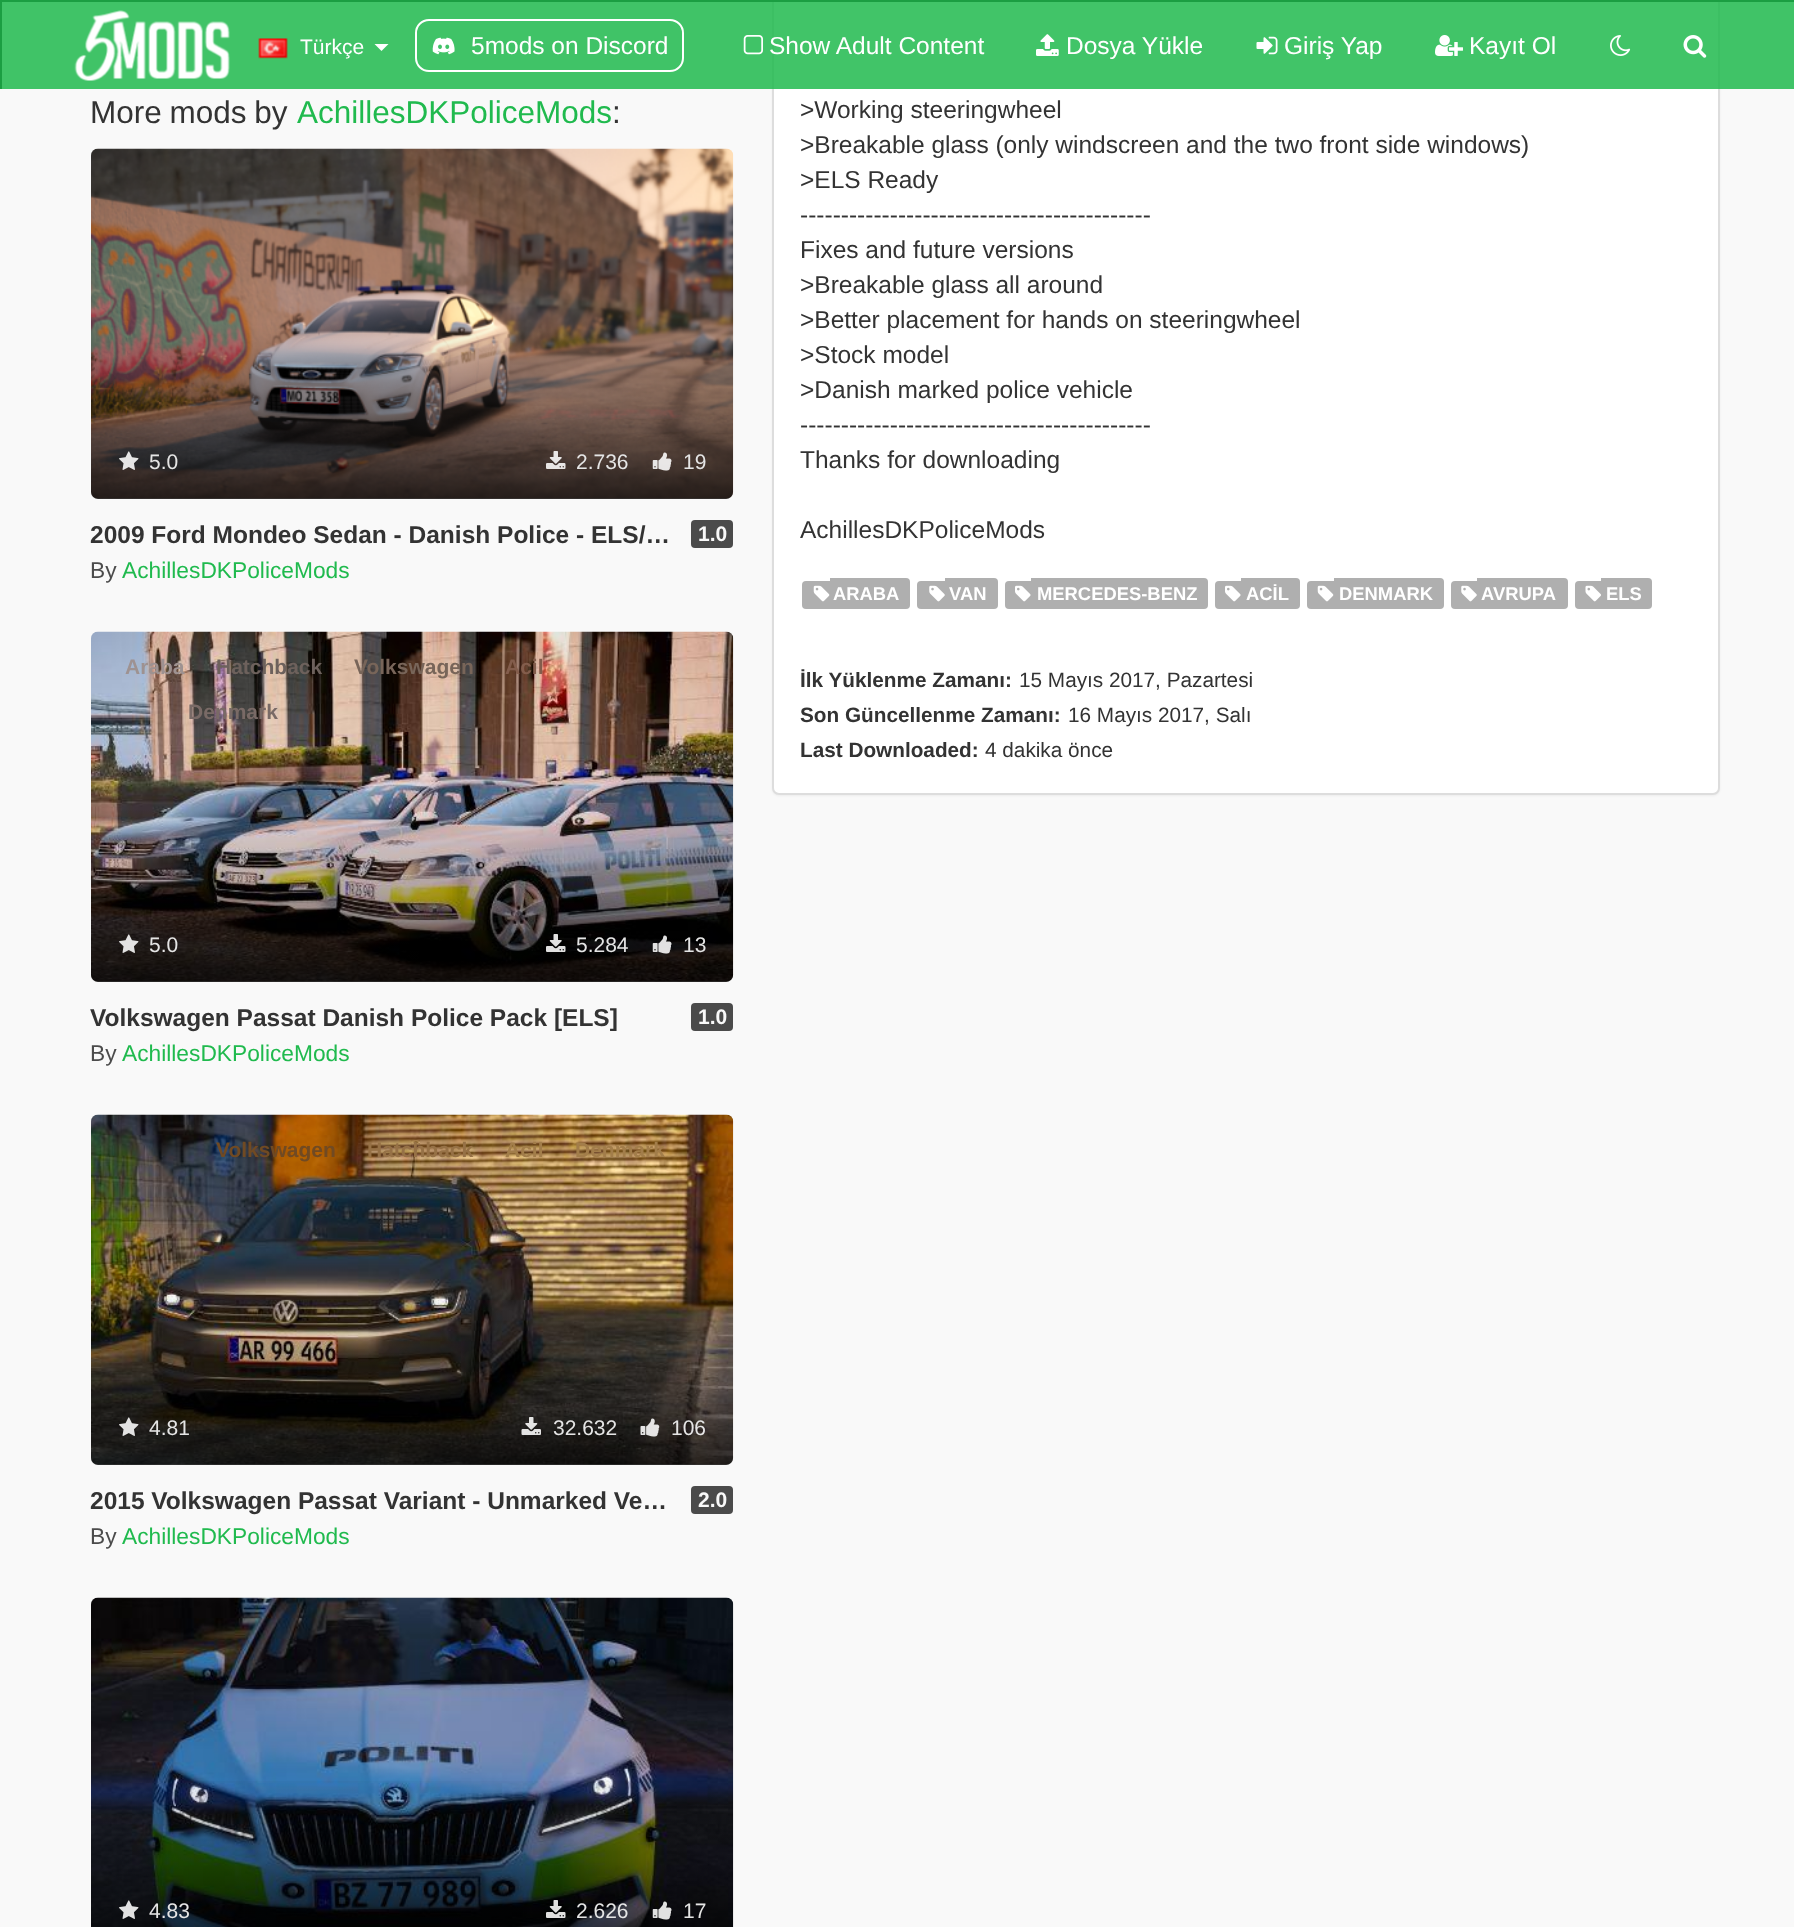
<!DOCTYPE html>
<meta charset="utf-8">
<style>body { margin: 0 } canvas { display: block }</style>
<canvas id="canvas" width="1794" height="1927"></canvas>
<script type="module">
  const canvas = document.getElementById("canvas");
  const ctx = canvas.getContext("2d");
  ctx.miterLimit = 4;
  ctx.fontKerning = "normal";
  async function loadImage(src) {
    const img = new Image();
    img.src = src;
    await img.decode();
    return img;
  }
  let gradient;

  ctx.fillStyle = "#f9f9f9";
  ctx.fillRect(0, 0, 1794, 1927);
  ctx.fillStyle = "rgba(0, 0, 0, 0.05)";
  ctx.filter = "blur(1px)";
  ctx.beginPath();
  ctx.roundRect(772, -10, 948, 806, 7);
  ctx.fill();
  ctx.filter = "none";
  ctx.fillStyle = "#ffffff";
  ctx.beginPath();
  ctx.roundRect(773, -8, 946, 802, 6);
  ctx.fill();
  ctx.strokeStyle = "#dddddd";
  ctx.lineWidth = 2;
  ctx.stroke();
  ctx.fillStyle = "rgba(32, 186, 78, 0.85)";
  ctx.fillRect(2, 2, 1792, 87);
  ctx.fillStyle = "#1b9e42";
  ctx.fillRect(0, 0, 1794, 2);
  ctx.fillRect(0, 0, 2, 89);
  ctx.drawImage(await loadImage("img1.png"), 74, 10, 156, 71);
  ctx.drawImage(await loadImage("img2.png"), 258, 38, 30, 21);
  ctx.font = "21px Liberation Sans";
  ctx.fillStyle = "#ffffff";
  ctx.fillText("Türkçe", 300, 54);
  ctx.beginPath();
  ctx.moveTo(374.5, 44);
  ctx.lineTo(388.5, 44);
  ctx.lineTo(381.5, 51);
  ctx.closePath();
  ctx.fill();
  ctx.beginPath();
  ctx.roundRect(416, 20, 267, 51, 13);
  ctx.strokeStyle = "#ffffff";
  ctx.stroke();
  ctx.drawImage(await loadImage("img3.png"), 432, 37, 23, 18);
  ctx.font = "24.5px Liberation Sans";
  ctx.fillText("5mods on Discord", 471, 54);
  ctx.drawImage(await loadImage("img4.png"), 743, 35, 20, 20);
  ctx.fillText("Show Adult Content", 769, 54);
  ctx.drawImage(await loadImage("img5.png"), 1036, 34, 23, 22);
  ctx.fillText("Dosya Yükle", 1066, 54);
  ctx.drawImage(await loadImage("img6.png"), 1256, 36, 22, 19);
  ctx.fillText("Giriş Yap", 1284, 54);
  ctx.drawImage(await loadImage("img7.png"), 1435, 35, 28, 21);
  ctx.fillText("Kayıt Ol", 1469, 54);
  ctx.drawImage(await loadImage("img8.png"), 1610, 35, 21, 21);
  ctx.drawImage(await loadImage("img9.png"), 1683, 35, 24, 23);
  ctx.wordSpacing = "-1px";
  ctx.font = "31.5px Liberation Sans";
  ctx.fillStyle = "#333333";
  ctx.fillText("More mods by", 90, 123);
  ctx.wordSpacing = "0px";
  ctx.fillStyle = "#20ba4e";
  ctx.fillText("AchillesDKPoliceMods", 297, 123);
  ctx.fillStyle = "#333333";
  ctx.fillText(":", 612, 123);
  ctx.drawImage(await loadImage("img10.png"), 91, 148, 643, 351);
  gradient = ctx.createLinearGradient(412, 149, 412, 499);
  gradient.addColorStop(0.5, "rgba(0, 0, 0, 0)");
  gradient.addColorStop(0.75, "rgba(0, 0, 0, 0.25)");
  gradient.addColorStop(1, "rgba(0, 0, 0, 0.75)");
  ctx.fillStyle = gradient;
  ctx.beginPath();
  ctx.roundRect(91, 149, 642, 350, 7);
  ctx.fill();
  ctx.drawImage(await loadImage("img11.png"), 119, 451, 20, 19);
  ctx.font = "21px Liberation Sans";
  ctx.fillStyle = "#e5e5e5";
  ctx.fillText("5.0", 149, 469);
  ctx.drawImage(await loadImage("img12.png"), 546, 451, 20, 18);
  ctx.fillText("2.736", 576, 469);
  ctx.drawImage(await loadImage("img13.png"), 652, 452, 20, 19);
  ctx.fillText("19", 683, 469);
  ctx.font = "bold 24.5px Liberation Sans";
  ctx.fillStyle = "#333333";
  ctx.fillText("2009 Ford Mondeo Sedan - Danish Police - ELS/…", 90, 543);
  ctx.fillStyle = "#4b4b4b";
  ctx.beginPath();
  ctx.roundRect(691, 520, 42, 28, 4);
  ctx.fill();
  ctx.font = "bold 21px Liberation Sans";
  ctx.fillStyle = "#f9f9f9";
  ctx.fillText("1.0", 698, 541);
  ctx.font = "22.75px Liberation Sans";
  ctx.fillStyle = "#4b4b4b";
  ctx.fillText("By", 90, 578);
  ctx.fillStyle = "#20ba4e";
  ctx.fillText("AchillesDKPoliceMods", 122, 578);
  ctx.drawImage(await loadImage("img14.png"), 91, 631, 643, 351);
  gradient = ctx.createLinearGradient(412, 632, 412, 982);
  gradient.addColorStop(0.5, "rgba(0, 0, 0, 0)");
  gradient.addColorStop(0.75, "rgba(0, 0, 0, 0.25)");
  gradient.addColorStop(1, "rgba(0, 0, 0, 0.75)");
  ctx.fillStyle = gradient;
  ctx.beginPath();
  ctx.roundRect(91, 632, 642, 350, 7);
  ctx.fill();
  ctx.font = "bold 21px Liberation Sans";
  ctx.fillStyle = "#9e9291";
  ctx.fillText("Araba", 125, 674);
  ctx.fillStyle = "#6d615c";
  ctx.fillText("Hatchback", 216, 674);
  ctx.fillStyle = "#786559";
  ctx.fillText("Volkswagen", 354, 674);
  ctx.fillStyle = "#835d4c";
  ctx.fillText("Acil", 505, 674);
  ctx.fillStyle = "#796a66";
  ctx.fillText("Denmark", 188, 719);
  ctx.drawImage(await loadImage("img15.png"), 119, 934, 20, 19);
  ctx.font = "21px Liberation Sans";
  ctx.fillStyle = "#e5e5e5";
  ctx.fillText("5.0", 149, 952);
  ctx.drawImage(await loadImage("img16.png"), 546, 934, 20, 18);
  ctx.fillText("5.284", 576, 952);
  ctx.drawImage(await loadImage("img17.png"), 652, 935, 20, 19);
  ctx.fillText("13", 683, 952);
  ctx.font = "bold 24.5px Liberation Sans";
  ctx.fillStyle = "#333333";
  ctx.fillText("Volkswagen Passat Danish Police Pack [ELS]", 90, 1026);
  ctx.fillStyle = "#4b4b4b";
  ctx.beginPath();
  ctx.roundRect(691, 1003, 42, 28, 4);
  ctx.fill();
  ctx.font = "bold 21px Liberation Sans";
  ctx.fillStyle = "#f9f9f9";
  ctx.fillText("1.0", 698, 1024);
  ctx.font = "22.75px Liberation Sans";
  ctx.fillStyle = "#4b4b4b";
  ctx.fillText("By", 90, 1061);
  ctx.fillStyle = "#20ba4e";
  ctx.fillText("AchillesDKPoliceMods", 122, 1061);
  ctx.drawImage(await loadImage("img18.png"), 91, 1114, 643, 351);
  gradient = ctx.createLinearGradient(412, 1115, 412, 1465);
  gradient.addColorStop(0.5, "rgba(0, 0, 0, 0)");
  gradient.addColorStop(0.75, "rgba(0, 0, 0, 0.25)");
  gradient.addColorStop(1, "rgba(0, 0, 0, 0.75)");
  ctx.fillStyle = gradient;
  ctx.beginPath();
  ctx.roundRect(91, 1115, 642, 350, 7);
  ctx.fill();
  ctx.font = "bold 21px Liberation Sans";
  ctx.fillStyle = "#704a23";
  ctx.fillText("Volkswagen", 216, 1157);
  ctx.fillStyle = "#967146";
  ctx.fillText("Hatchback", 367, 1157);
  ctx.fillStyle = "#a27d4a";
  ctx.fillText("Acil", 505, 1157);
  ctx.fillText("Denmark", 575, 1157);
  ctx.drawImage(await loadImage("img19.png"), 119, 1417, 20, 19);
  ctx.font = "21px Liberation Sans";
  ctx.fillStyle = "#e5e5e5";
  ctx.fillText("4.81", 149, 1435);
  ctx.drawImage(await loadImage("img20.png"), 521, 1417, 20, 18);
  ctx.fillText("32.632", 553, 1435);
  ctx.drawImage(await loadImage("img21.png"), 640, 1418, 20, 19);
  ctx.fillText("106", 671, 1435);
  ctx.font = "bold 24.5px Liberation Sans";
  ctx.fillStyle = "#333333";
  ctx.fillText("2015 Volkswagen Passat Variant - Unmarked Ve…", 90, 1509);
  ctx.fillStyle = "#4b4b4b";
  ctx.beginPath();
  ctx.roundRect(691, 1486, 42, 28, 4);
  ctx.fill();
  ctx.font = "bold 21px Liberation Sans";
  ctx.fillStyle = "#f9f9f9";
  ctx.fillText("2.0", 698, 1507);
  ctx.font = "22.75px Liberation Sans";
  ctx.fillStyle = "#4b4b4b";
  ctx.fillText("By", 90, 1544);
  ctx.fillStyle = "#20ba4e";
  ctx.fillText("AchillesDKPoliceMods", 122, 1544);
  ctx.drawImage(await loadImage("img22.png"), 91, 1597, 643, 330);
  gradient = ctx.createLinearGradient(412, 1598, 412, 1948);
  gradient.addColorStop(0.5, "rgba(0, 0, 0, 0)");
  gradient.addColorStop(0.75, "rgba(0, 0, 0, 0.25)");
  gradient.addColorStop(1, "rgba(0, 0, 0, 0.75)");
  ctx.fillStyle = gradient;
  ctx.fillRect(91, 1781, 642, 146);
  ctx.drawImage(await loadImage("img23.png"), 119, 1900, 20, 19);
  ctx.font = "21px Liberation Sans";
  ctx.fillStyle = "#e5e5e5";
  ctx.fillText("4.83", 149, 1918);
  ctx.drawImage(await loadImage("img24.png"), 546, 1900, 20, 18);
  ctx.fillText("2.626", 576, 1918);
  ctx.drawImage(await loadImage("img25.png"), 652, 1901, 20, 19);
  ctx.fillText("17", 683, 1918);
  ctx.font = "24.5px Liberation Sans";
  ctx.fillStyle = "#333333";
  ctx.fillText(">Working steeringwheel", 800, 118);
  ctx.fillText(">Breakable glass (only windscreen and the two front side windows)", 800, 153);
  ctx.fillText(">ELS Ready", 800, 188);
  ctx.fillText("-------------------------------------------", 800, 223);
  ctx.fillText("Fixes and future versions", 800, 258);
  ctx.fillText(">Breakable glass all around", 800, 293);
  ctx.fillText(">Better placement for hands on steeringwheel", 800, 328);
  ctx.fillText(">Stock model", 800, 363);
  ctx.fillText(">Danish marked police vehicle", 800, 398);
  ctx.fillText("-------------------------------------------", 800, 433);
  ctx.fillText("Thanks for downloading", 800, 468);
  ctx.fillText("AchillesDKPoliceMods", 800, 538);
  ctx.fillStyle = "#afafaf";
  ctx.beginPath();
  ctx.roundRect(802, 581, 28, 28, [4, 0, 0, 4]);
  ctx.fill();
  ctx.beginPath();
  ctx.roundRect(830, 578, 80, 31, [0, 4, 4, 0]);
  ctx.fill();
  ctx.drawImage(await loadImage("img26.png"), 813, 585, 17, 17);
  ctx.font = "bold 18.4px Liberation Sans";
  ctx.fillStyle = "#ffffff";
  ctx.fillText("ARABA", 833, 600);
  ctx.fillStyle = "#afafaf";
  ctx.beginPath();
  ctx.roundRect(917, 581, 28, 28, [4, 0, 0, 4]);
  ctx.fill();
  ctx.beginPath();
  ctx.roundRect(945, 578, 53, 31, [0, 4, 4, 0]);
  ctx.fill();
  ctx.drawImage(await loadImage("img27.png"), 929, 585, 16, 17);
  ctx.fillStyle = "#ffffff";
  ctx.fillText("VAN", 949, 600);
  ctx.fillStyle = "#afafaf";
  ctx.beginPath();
  ctx.roundRect(1005, 581, 26, 28, [4, 0, 0, 4]);
  ctx.fill();
  ctx.beginPath();
  ctx.roundRect(1031, 578, 177, 31, [0, 4, 4, 0]);
  ctx.fill();
  ctx.drawImage(await loadImage("img28.png"), 1015, 585, 16, 17);
  ctx.fillStyle = "#ffffff";
  ctx.fillText("MERCEDES-BENZ", 1037, 600);
  ctx.fillStyle = "#afafaf";
  ctx.beginPath();
  ctx.roundRect(1215, 581, 26, 28, [4, 0, 0, 4]);
  ctx.fill();
  ctx.beginPath();
  ctx.roundRect(1241, 578, 59, 31, [0, 4, 4, 0]);
  ctx.fill();
  ctx.drawImage(await loadImage("img28.png"), 1225, 585, 16, 17);
  ctx.fillStyle = "#ffffff";
  ctx.fillText("ACİL", 1246, 600);
  ctx.fillStyle = "#afafaf";
  ctx.beginPath();
  ctx.roundRect(1307, 581, 27, 28, [4, 0, 0, 4]);
  ctx.fill();
  ctx.beginPath();
  ctx.roundRect(1334, 578, 110, 31, [0, 4, 4, 0]);
  ctx.fill();
  ctx.drawImage(await loadImage("img26.png"), 1317, 585, 17, 17);
  ctx.fillStyle = "#ffffff";
  ctx.fillText("DENMARK", 1339, 600);
  ctx.fillStyle = "#afafaf";
  ctx.beginPath();
  ctx.roundRect(1451, 581, 26, 28, [4, 0, 0, 4]);
  ctx.fill();
  ctx.beginPath();
  ctx.roundRect(1477, 578, 91, 31, [0, 4, 4, 0]);
  ctx.fill();
  ctx.drawImage(await loadImage("img27.png"), 1461, 585, 16, 17);
  ctx.fillStyle = "#ffffff";
  ctx.fillText("AVRUPA", 1481, 600);
  ctx.fillStyle = "#afafaf";
  ctx.beginPath();
  ctx.roundRect(1575, 581, 26, 28, [4, 0, 0, 4]);
  ctx.fill();
  ctx.beginPath();
  ctx.roundRect(1601, 578, 51, 31, [0, 4, 4, 0]);
  ctx.fill();
  ctx.drawImage(await loadImage("img29.png"), 1585, 585, 16, 17);
  ctx.fillStyle = "#ffffff";
  ctx.fillText("ELS", 1606, 600);
  ctx.font = "bold 20.75px Liberation Sans";
  ctx.fillStyle = "#333333";
  ctx.fillText("İlk Yüklenme Zamanı:", 800, 687);
  ctx.font = "20.75px Liberation Sans";
  ctx.fillText("15 Mayıs 2017, Pazartesi", 1019, 687);
  ctx.font = "bold 20.75px Liberation Sans";
  ctx.fillText("Son Güncellenme Zamanı:", 800, 722);
  ctx.font = "20.75px Liberation Sans";
  ctx.fillText("16 Mayıs 2017, Salı", 1068, 722);
  ctx.font = "bold 20.75px Liberation Sans";
  ctx.fillText("Last Downloaded:", 800, 757);
  ctx.font = "20.75px Liberation Sans";
  ctx.fillText("4 dakika önce", 985, 757);
</script>
